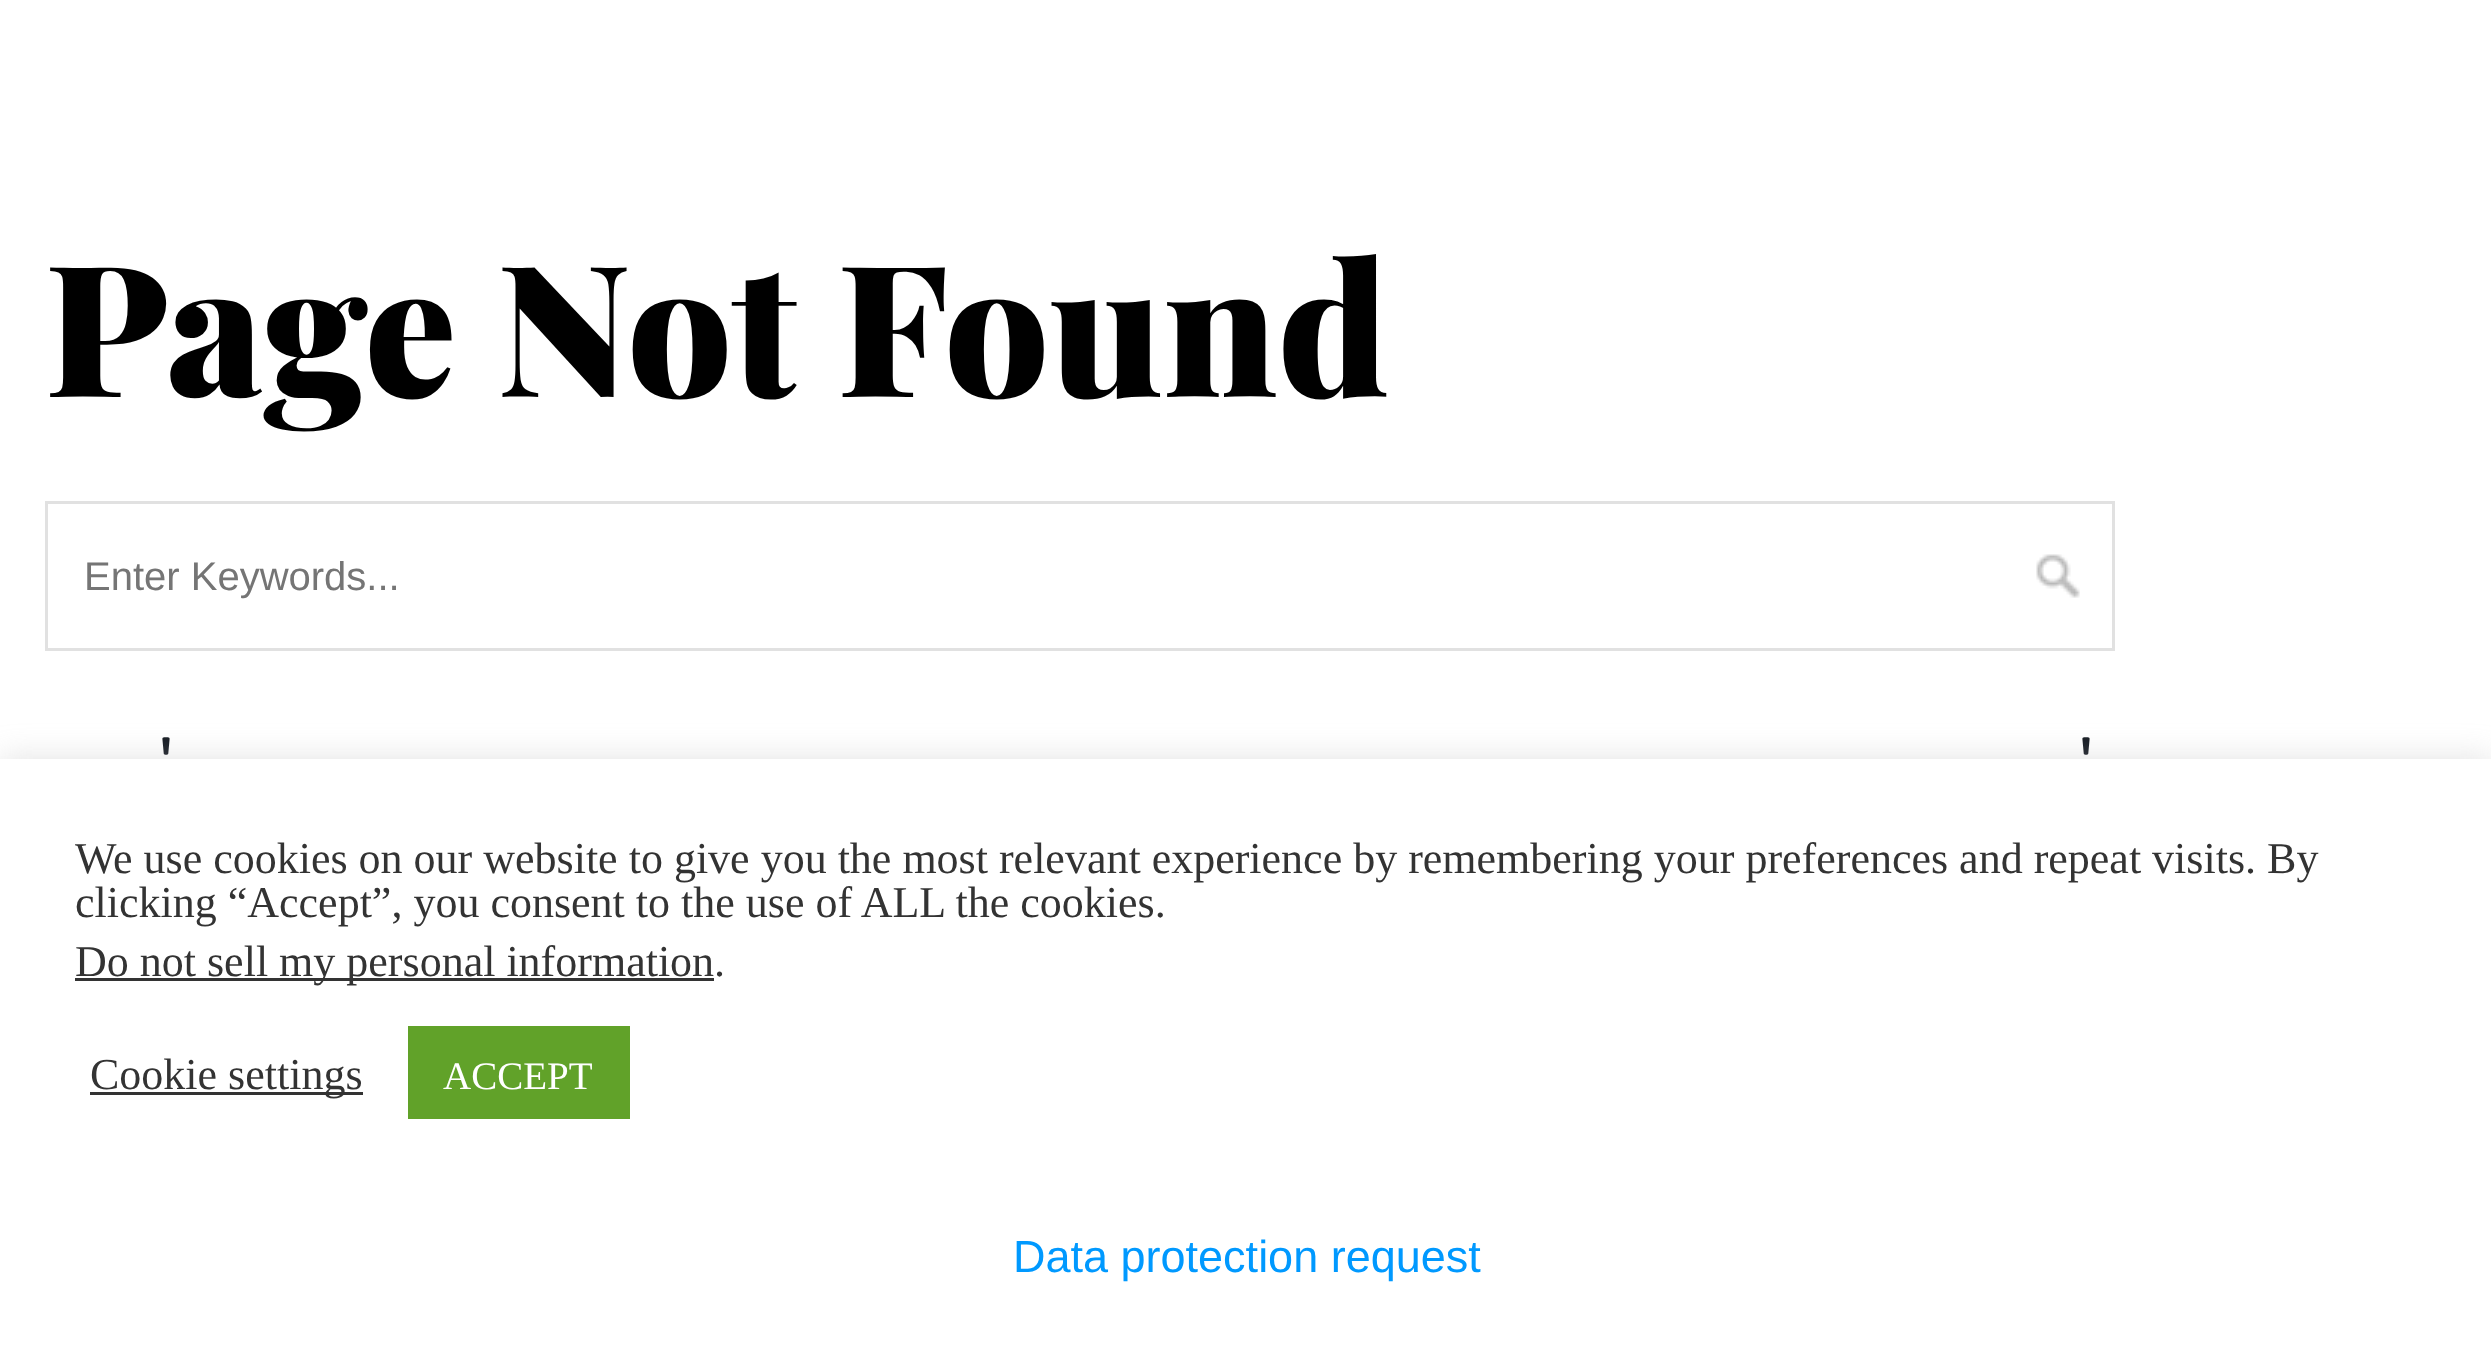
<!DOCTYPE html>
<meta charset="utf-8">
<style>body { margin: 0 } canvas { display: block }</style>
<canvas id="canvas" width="2491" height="1367"></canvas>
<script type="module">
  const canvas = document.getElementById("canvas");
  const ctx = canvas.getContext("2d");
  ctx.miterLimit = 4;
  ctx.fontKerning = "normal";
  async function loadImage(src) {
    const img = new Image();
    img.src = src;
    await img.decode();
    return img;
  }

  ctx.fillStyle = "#ffffff";
  ctx.fillRect(0, 0, 2491, 1367);
  ctx.font = "900 183px Playfair Display";
  ctx.fillStyle = "#000000";
  ctx.fillText("Page Not Found", 45, 397);
  ctx.drawImage(await loadImage("img1.png"), 2036, 554, 44, 44);
  ctx.strokeStyle = "#e1e1e1";
  ctx.lineWidth = 3;
  ctx.strokeRect(46.5, 502.5, 2067, 147);
  ctx.font = "40px Liberation Sans";
  ctx.fillStyle = "#757575";
  ctx.fillText("Enter Keywords...", 84, 590);
  ctx.font = "300 87px Rubik";
  ctx.fillStyle = "#171c24";
  ctx.fillText("'", 157, 799);
  ctx.fillText("'", 2077, 799);
  ctx.fillStyle = "rgba(172, 171, 171, 0.3)";
  ctx.filter = "blur(15px)";
  ctx.beginPath();
  ctx.rect(0, 756, 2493, 609);
  ctx.fill();
  ctx.filter = "none";
  ctx.fillStyle = "#ffffff";
  ctx.fillRect(0, 759, 2491, 608);
  ctx.font = "44px Liberation Serif";
  ctx.fillStyle = "#333333";
  ctx.fillText("We use cookies on our website to give you the most relevant experience by remembering your preferences and repeat visits. By", 75, 873);
  ctx.fillText("clicking “Accept”, you consent to the use of ALL the cookies.", 75, 917);
  ctx.fillRect(75, 978, 639, 3);
  ctx.fillText("Do not sell my personal information", 75, 976);
  ctx.fillText(".", 714, 976);
  ctx.fillRect(90, 1092, 273, 3);
  ctx.fillText("Cookie settings", 90, 1089);
  ctx.fillStyle = "#61a229";
  ctx.fillRect(408, 1026, 222, 93);
  ctx.font = "39px Liberation Serif";
  ctx.fillStyle = "#ffffff";
  ctx.fillText("ACCEPT", 443, 1089);
  ctx.font = "45px Liberation Sans";
  ctx.fillStyle = "#0099ff";
  ctx.fillText("Data protection request", 1013, 1272);
</script>
